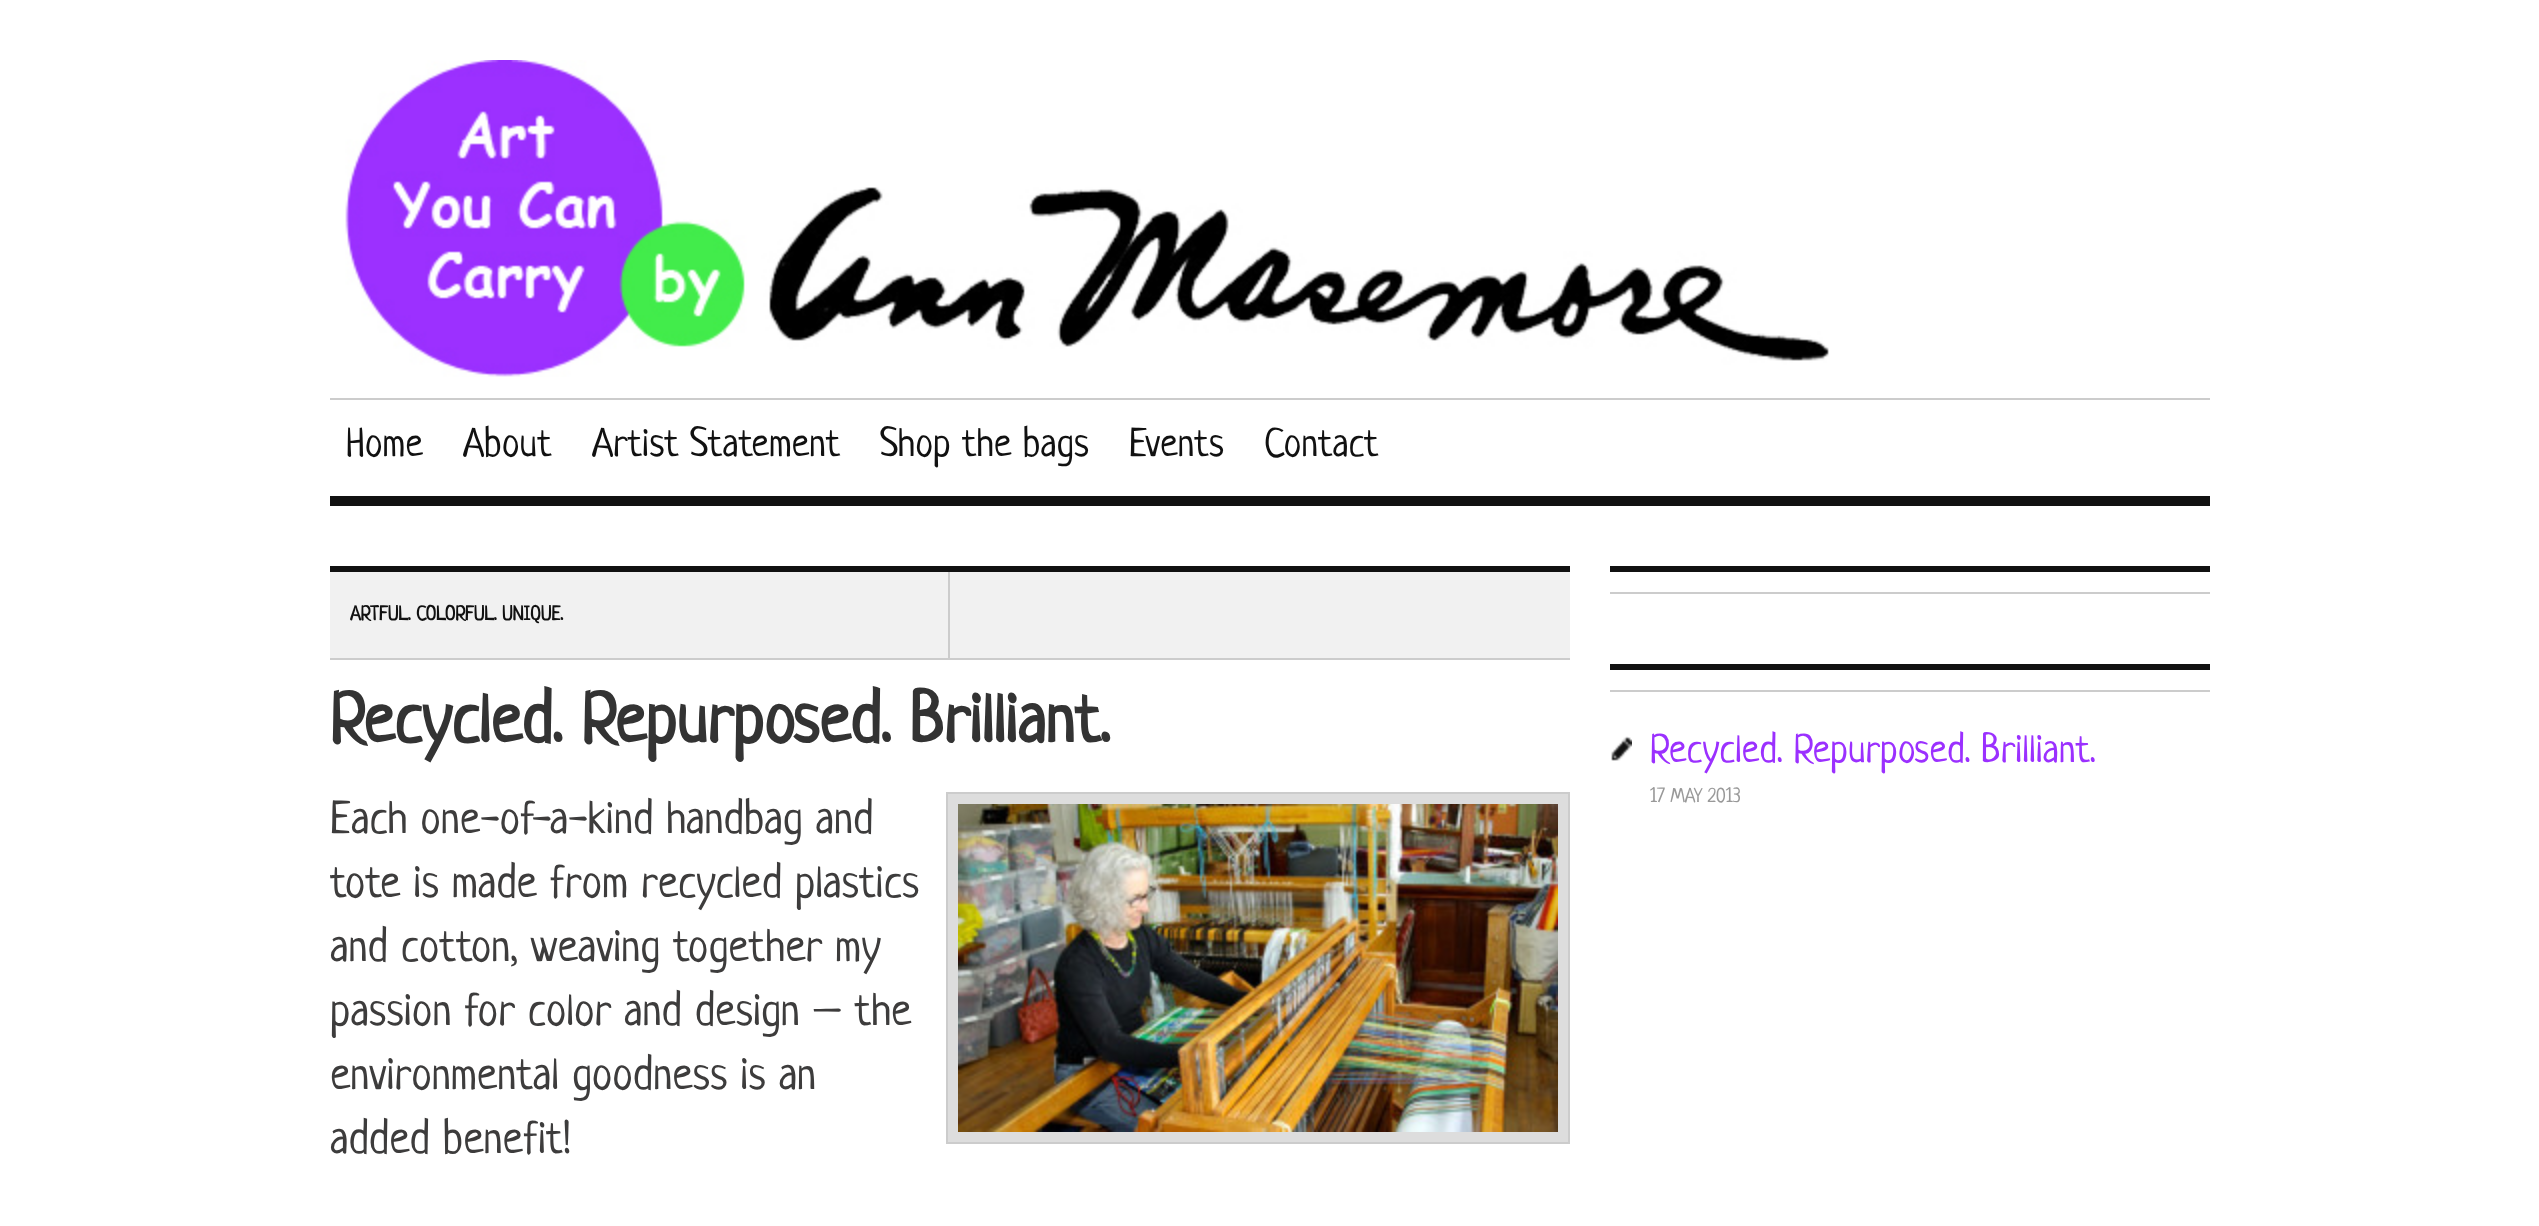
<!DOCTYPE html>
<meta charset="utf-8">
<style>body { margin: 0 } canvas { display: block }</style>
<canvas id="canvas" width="2539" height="1226"></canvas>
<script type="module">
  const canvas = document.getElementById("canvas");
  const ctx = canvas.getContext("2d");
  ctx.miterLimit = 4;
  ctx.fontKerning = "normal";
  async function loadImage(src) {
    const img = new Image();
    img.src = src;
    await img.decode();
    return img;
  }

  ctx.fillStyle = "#ffffff";
  ctx.fillRect(0, 0, 2539, 1226);
  ctx.drawImage(await loadImage("img1.png"), 345, 60, 1484, 317);
  ctx.fillStyle = "#cccccc";
  ctx.fillRect(330, 398, 1880, 2);
  ctx.fillStyle = "#111111";
  ctx.fillRect(330, 496, 1880, 10);
  ctx.font = "40px Neucha";
  ctx.fillText("Home", 346, 456);
  ctx.fillText("About", 463, 456);
  ctx.fillText("Artist Statement", 592, 456);
  ctx.fillText("Shop the bags", 880, 456);
  ctx.fillText("Events", 1129, 456);
  ctx.fillText("Contact", 1264, 456);
  ctx.fillStyle = "#f1f1f1";
  ctx.fillRect(330, 572, 1240, 86);
  ctx.fillStyle = "#111111";
  ctx.fillRect(330, 566, 1240, 6);
  ctx.fillStyle = "#cccccc";
  ctx.fillRect(330, 658, 1240, 2);
  ctx.fillRect(948, 572, 2, 86);
  ctx.font = "bold 20px Neucha";
  ctx.fillStyle = "#111111";
  ctx.fillText("ARTFUL. COLORFUL. UNIQUE.", 350, 620);
  ctx.font = "bold 70px Neucha";
  ctx.fillStyle = "#333333";
  ctx.fillText("Recycled. Repurposed. Brilliant.", 330, 742);
  ctx.font = "46px Neucha";
  ctx.fillStyle = "#3d3c3c";
  ctx.fillText("Each one-of-a-kind handbag and", 330, 833);
  ctx.fillText("tote is made from recycled plastics", 330, 897);
  ctx.fillText("and cotton, weaving together my", 330, 961);
  ctx.fillText("passion for color and design – the", 330, 1025);
  ctx.fillText("environmental goodness is an", 330, 1089);
  ctx.fillText("added benefit!", 330, 1153);
  ctx.strokeStyle = "#cccccc";
  ctx.lineWidth = 2;
  ctx.strokeRect(947, 793, 622, 350);
  ctx.strokeStyle = "#dddddd";
  ctx.lineWidth = 10;
  ctx.strokeRect(953, 799, 610, 338);
  ctx.drawImage(await loadImage("img2.png"), 958, 804, 600, 328);
  ctx.fillStyle = "#111111";
  ctx.fillRect(1610, 566, 600, 6);
  ctx.fillStyle = "#cccccc";
  ctx.fillRect(1610, 592, 600, 2);
  ctx.fillStyle = "#111111";
  ctx.fillRect(1610, 664, 600, 6);
  ctx.fillStyle = "#cccccc";
  ctx.fillRect(1610, 690, 600, 2);
  ctx.drawImage(await loadImage("img3.png"), 1611, 736, 21, 25);
  ctx.font = "40px Neucha";
  ctx.fillStyle = "#9b30ff";
  ctx.fillText("Recycled. Repurposed. Brilliant.", 1650, 762);
  ctx.font = "20px Neucha";
  ctx.fillStyle = "#999999";
  ctx.fillText("17 MAY 2013", 1650, 802);
</script>
